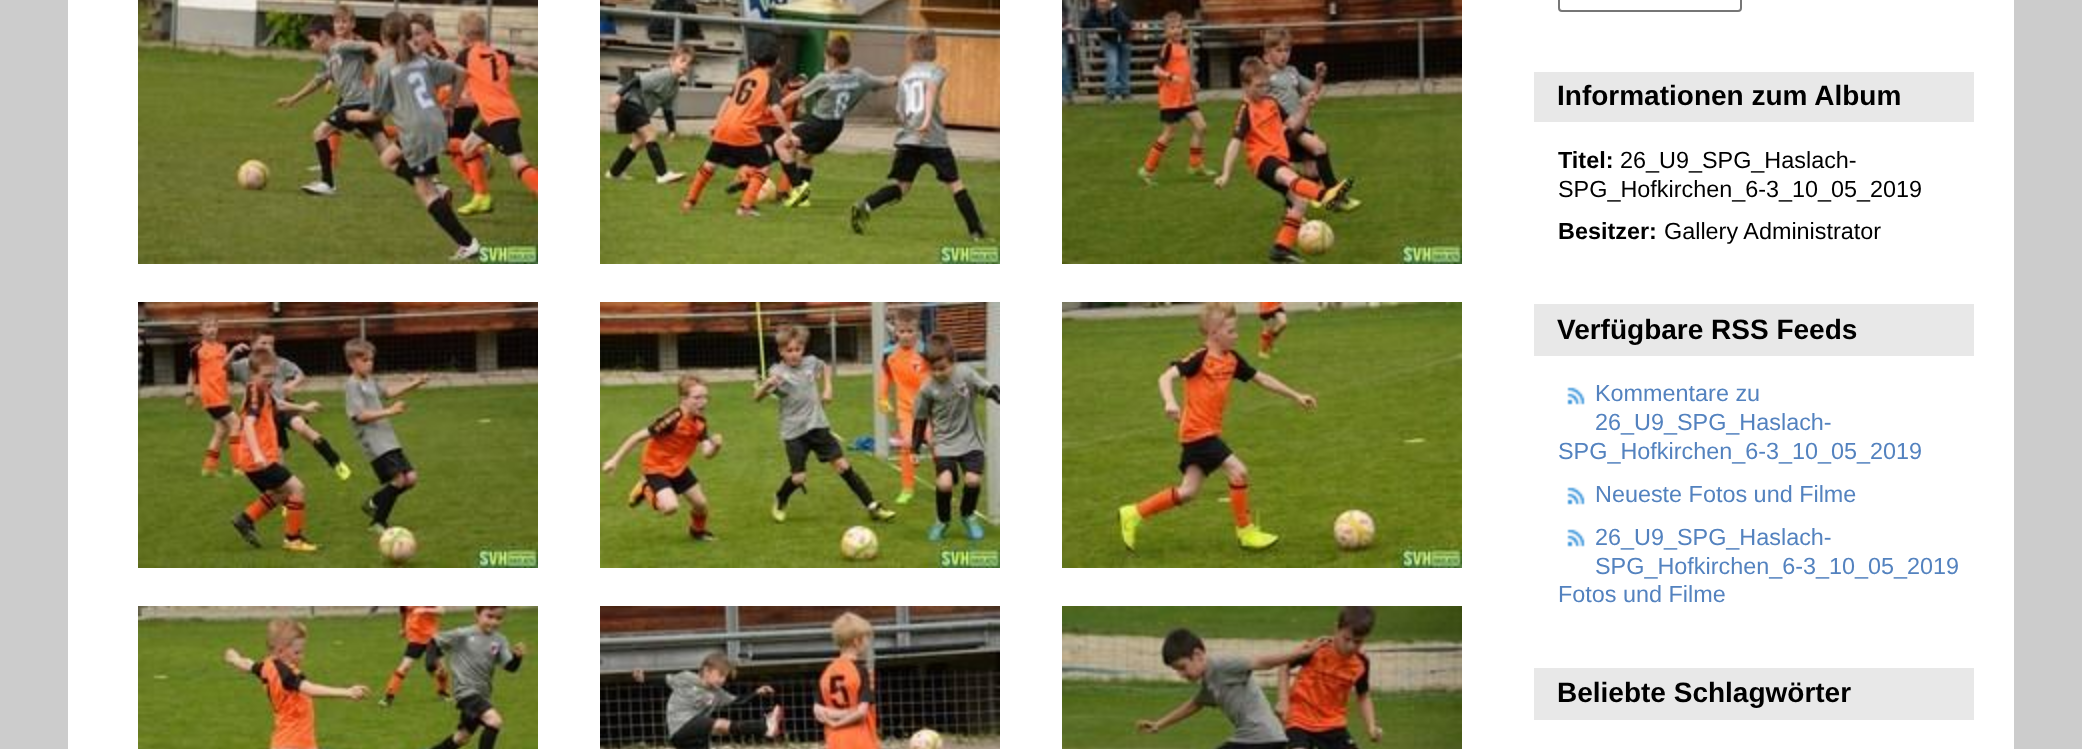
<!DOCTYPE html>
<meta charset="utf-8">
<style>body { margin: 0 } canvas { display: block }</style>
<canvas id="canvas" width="2082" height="749"></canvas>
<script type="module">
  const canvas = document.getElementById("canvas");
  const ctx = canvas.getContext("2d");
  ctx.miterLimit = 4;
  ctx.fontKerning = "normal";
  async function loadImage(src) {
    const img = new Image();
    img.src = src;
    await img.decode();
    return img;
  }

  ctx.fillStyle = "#cccccc";
  ctx.fillRect(0, 0, 2082, 749);
  ctx.fillStyle = "#ffffff";
  ctx.fillRect(68, 0, 1946, 749);
  ctx.drawImage(await loadImage("img1.png"), 138, 0, 400, 264);
  ctx.drawImage(await loadImage("img2.png"), 600, 0, 400, 264);
  ctx.drawImage(await loadImage("img3.png"), 1062, 0, 400, 264);
  ctx.drawImage(await loadImage("img4.png"), 138, 302, 400, 266);
  ctx.drawImage(await loadImage("img5.png"), 600, 302, 400, 266);
  ctx.drawImage(await loadImage("img6.png"), 1062, 302, 400, 266);
  ctx.drawImage(await loadImage("img7.png"), 138, 606, 400, 143);
  ctx.drawImage(await loadImage("img8.png"), 600, 606, 400, 143);
  ctx.drawImage(await loadImage("img9.png"), 1062, 606, 400, 143);
  ctx.beginPath();
  ctx.roundRect(1559, -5, 182, 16, 3);
  ctx.strokeStyle = "#767676";
  ctx.lineWidth = 2;
  ctx.stroke();
  ctx.fillStyle = "#e8e8e8";
  ctx.fillRect(1534, 72, 440, 50);
  ctx.font = "bold 28px Liberation Sans";
  ctx.fillStyle = "#000000";
  ctx.fillText("Informationen zum Album", 1557, 105);
  ctx.font = "bold 23.4px Liberation Sans";
  ctx.fillText("Titel:", 1558, 168);
  ctx.font = "23.4px Liberation Sans";
  ctx.fillText("26_U9_SPG_Haslach-", 1620, 168);
  ctx.fillText("SPG_Hofkirchen_6-3_10_05_2019", 1558, 197);
  ctx.font = "bold 23.4px Liberation Sans";
  ctx.fillText("Besitzer:", 1558, 239);
  ctx.font = "23.4px Liberation Sans";
  ctx.fillText("Gallery Administrator", 1664, 239);
  ctx.fillStyle = "#e8e8e8";
  ctx.fillRect(1534, 304, 440, 52);
  ctx.font = "bold 28px Liberation Sans";
  ctx.fillStyle = "#000000";
  ctx.fillText("Verfügbare RSS Feeds", 1557, 339);
  ctx.drawImage(await loadImage("img10.png"), 1567, 387, 18, 18);
  ctx.font = "23.4px Liberation Sans";
  ctx.fillStyle = "#5382bf";
  ctx.fillText("Kommentare zu", 1595, 401);
  ctx.fillText("26_U9_SPG_Haslach-", 1595, 430);
  ctx.fillText("SPG_Hofkirchen_6-3_10_05_2019", 1558, 459);
  ctx.drawImage(await loadImage("img10.png"), 1567, 487, 18, 18);
  ctx.fillText("Neueste Fotos und Filme", 1595, 502);
  ctx.drawImage(await loadImage("img10.png"), 1567, 529, 18, 18);
  ctx.fillText("26_U9_SPG_Haslach-", 1595, 545);
  ctx.fillText("SPG_Hofkirchen_6-3_10_05_2019", 1595, 574);
  ctx.fillText("Fotos und Filme", 1558, 602);
  ctx.fillStyle = "#e8e8e8";
  ctx.fillRect(1534, 668, 440, 52);
  ctx.font = "bold 28px Liberation Sans";
  ctx.fillStyle = "#000000";
  ctx.fillText("Beliebte Schlagwörter", 1557, 702);
</script>
